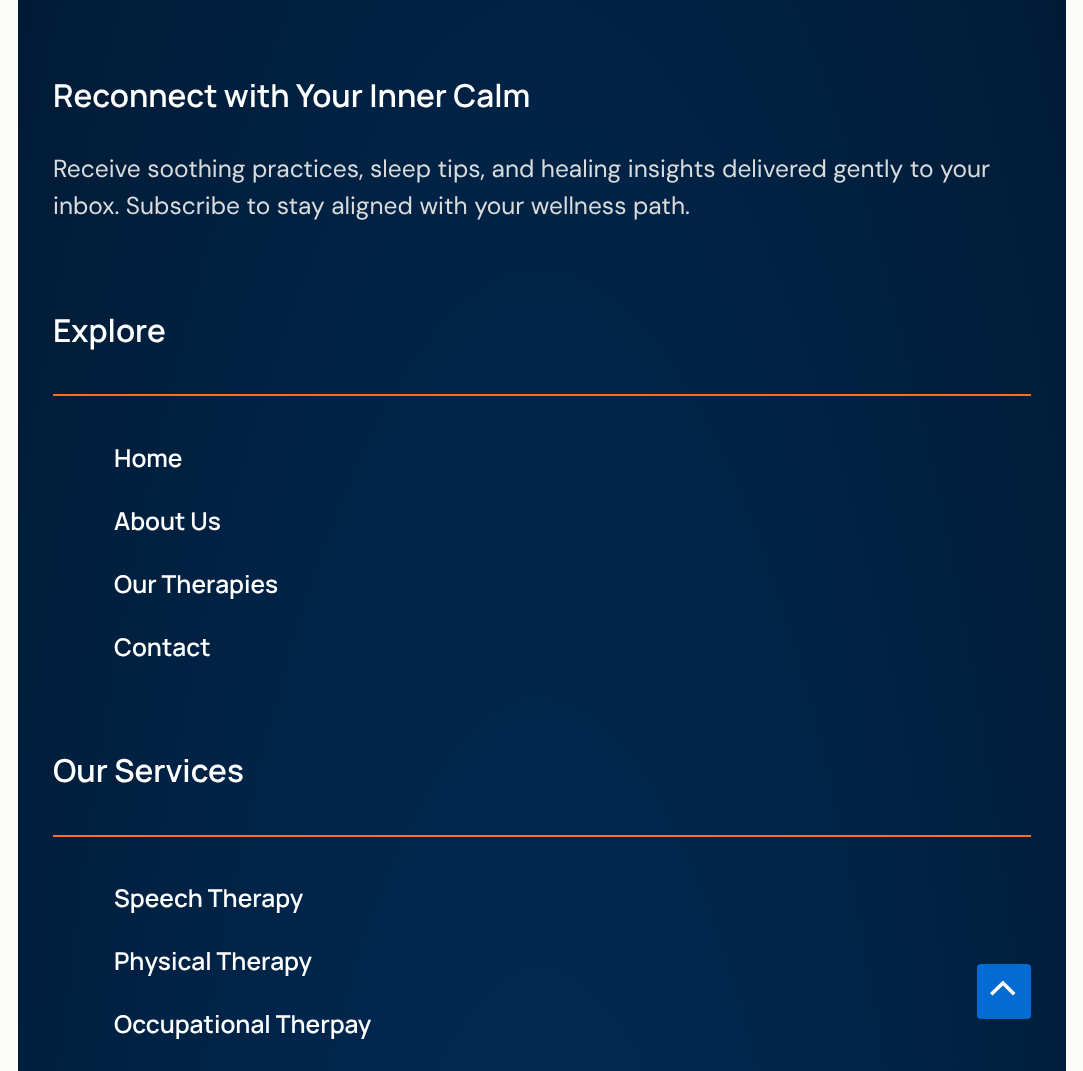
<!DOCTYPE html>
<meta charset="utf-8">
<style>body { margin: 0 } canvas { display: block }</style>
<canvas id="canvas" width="1083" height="1071"></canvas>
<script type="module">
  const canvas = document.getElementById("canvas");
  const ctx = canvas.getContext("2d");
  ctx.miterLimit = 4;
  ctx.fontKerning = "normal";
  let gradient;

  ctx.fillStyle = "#fcfcfa";
  ctx.fillRect(0, 0, 1083, 1071);
  gradient = ctx.createRadialGradient(542, 475.2, 0, 542, 475.2, 741);
  gradient.addColorStop(0, "#002f5f");
  gradient.addColorStop(1, "#011a33");
  ctx.fillStyle = gradient;
  ctx.beginPath();
  ctx.rect(18, 0, 1048, 1071);
  ctx.save();
  ctx.clip();
  ctx.scale(1, 3259 / 741);
  ctx.fillRect(0, 0, 1083, 244);
  ctx.restore();
  ctx.font = "600 31.5px Manrope";
  ctx.fillStyle = "#ffffff";
  ctx.fillText("Reconnect with Your Inner Calm", 53, 107);
  ctx.font = "24.5px DM Sans";
  ctx.fillStyle = "#dadbdb";
  ctx.fillText("Receive soothing practices, sleep tips, and healing insights delivered gently to your", 53, 177);
  ctx.fillText("inbox. Subscribe to stay aligned with your wellness path.", 53, 214);
  ctx.font = "600 31.5px Manrope";
  ctx.fillStyle = "#ffffff";
  ctx.fillText("Explore", 53, 342);
  ctx.fillStyle = "#ff6d22";
  ctx.fillRect(53, 394, 978, 2);
  ctx.font = "600 24.5px Manrope";
  ctx.fillStyle = "#ffffff";
  ctx.fillText("Home", 114, 467);
  ctx.fillText("About Us", 114, 530);
  ctx.fillText("Our Therapies", 114, 593);
  ctx.fillText("Contact", 114, 656);
  ctx.font = "600 31.5px Manrope";
  ctx.fillText("Our Services", 53, 782);
  ctx.fillStyle = "#ff6d22";
  ctx.fillRect(53, 835, 978, 2);
  ctx.font = "600 24.5px Manrope";
  ctx.fillStyle = "#ffffff";
  ctx.fillText("Speech Therapy", 114, 907);
  ctx.fillText("Physical Therapy", 114, 970);
  ctx.fillText("Occupational Therpay", 114, 1033);
  ctx.fillStyle = "#046bd2";
  ctx.beginPath();
  ctx.roundRect(977, 964, 54, 55, 4);
  ctx.fill();
  ctx.fillStyle = "#ffffff";
  ctx.beginPath();
  ctx.moveTo(1015.5, 993);
  ctx.lineTo(1003, 980.5);
  ctx.lineTo(990, 993);
  ctx.lineTo(992.5, 995.5);
  ctx.lineTo(1003, 985.5);
  ctx.lineTo(1013, 995.5);
  ctx.closePath();
  ctx.fill();
</script>
